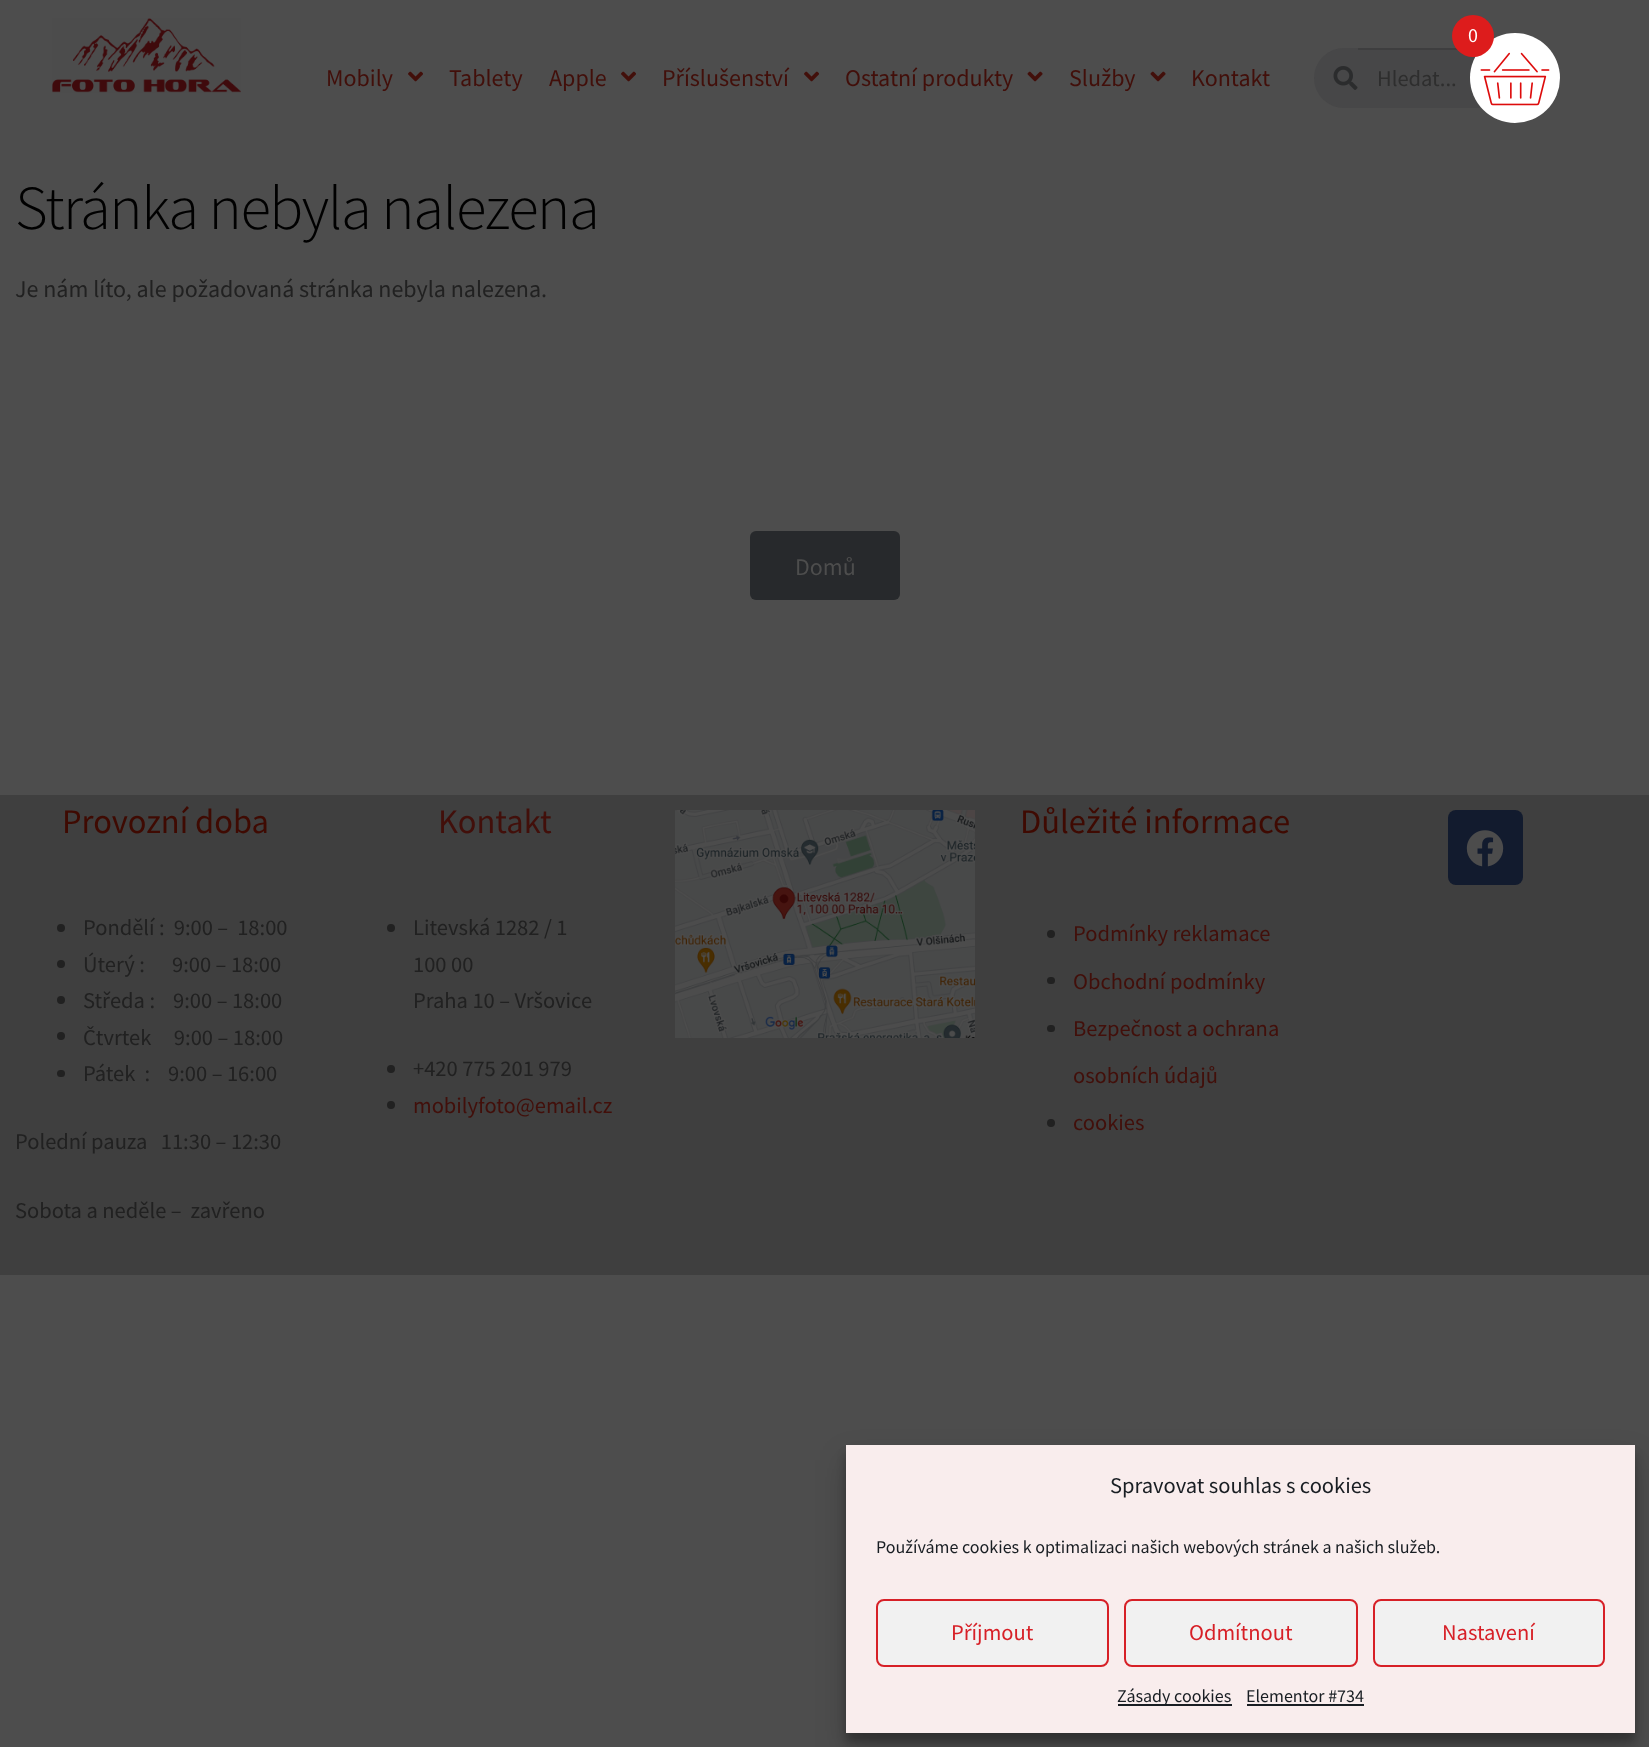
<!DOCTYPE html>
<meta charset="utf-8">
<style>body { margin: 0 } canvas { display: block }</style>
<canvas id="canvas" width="1649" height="1747"></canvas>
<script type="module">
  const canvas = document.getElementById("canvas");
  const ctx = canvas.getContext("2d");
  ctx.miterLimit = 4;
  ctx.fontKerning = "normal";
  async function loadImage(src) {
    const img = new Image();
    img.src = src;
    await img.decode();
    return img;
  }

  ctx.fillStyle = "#4d4d4d";
  ctx.fillRect(0, 0, 1649, 1747);
  ctx.fillStyle = "#474748";
  ctx.beginPath();
  ctx.roundRect(1314, 48, 195, 60, 30);
  ctx.fill();
  ctx.fillStyle = "#ffffff";
  ctx.beginPath();
  ctx.arc(1515, 78, 45, 0, Math.PI * 2);
  ctx.fill();
  ctx.drawImage(await loadImage("img1.png"), 1480, 52, 70, 54);
  ctx.fillStyle = "rgba(0, 0, 0, 0.12)";
  ctx.fillRect(1358, 48, 100, 2);
  ctx.fillStyle = "#dd1c1c";
  ctx.beginPath();
  ctx.arc(1473, 36, 21, 0, Math.PI * 2);
  ctx.fill();
  ctx.font = "20px Source Sans Pro";
  ctx.fillStyle = "#ffffff";
  ctx.fillText("0", 1468, 42);
  ctx.drawImage(await loadImage("img2.png"), 52, 18, 189, 75);
  ctx.font = "24px Source Sans Pro";
  ctx.fillStyle = "#420f0a";
  ctx.fillText("Mobily", 326, 86);
  ctx.drawImage(await loadImage("img3.png"), 408, 71, 15, 11);
  ctx.fillText("Tablety", 449, 86);
  ctx.fillText("Apple", 549, 86);
  ctx.drawImage(await loadImage("img3.png"), 621, 71, 15, 11);
  ctx.fillText("Příslušenství", 662, 86);
  ctx.drawImage(await loadImage("img3.png"), 804, 71, 15, 11);
  ctx.fillText("Ostatní produkty", 845, 86);
  ctx.drawImage(await loadImage("img4.png"), 1027, 71, 16, 11);
  ctx.fillText("Služby", 1069, 86);
  ctx.drawImage(await loadImage("img4.png"), 1150, 71, 16, 11);
  ctx.fillText("Kontakt", 1191, 86);
  ctx.drawImage(await loadImage("img5.png"), 1333, 66, 25, 24);
  ctx.font = "22.5px Source Sans Pro";
  ctx.fillStyle = "#2e2e2e";
  ctx.fillText("Hledat...", 1377, 86);
  ctx.letterSpacing = "-1.5px";
  ctx.font = "300 62.75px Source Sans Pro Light";
  ctx.fillStyle = "#000000";
  ctx.fillText("Stránka nebyla nalezena", 15, 229);
  ctx.letterSpacing = "0px";
  ctx.font = "24px Source Sans Pro";
  ctx.fillStyle = "#212121";
  ctx.fillText("Je nám líto, ale požadovaná stránka nebyla nalezena.", 15, 297);
  ctx.fillStyle = "#27292c";
  ctx.beginPath();
  ctx.roundRect(750, 531, 150, 69, 6);
  ctx.fill();
  ctx.fillStyle = "#4d4d4d";
  ctx.fillText("Domů", 795, 575);
  ctx.fillStyle = "#3f3f3f";
  ctx.fillRect(0, 795, 1649, 480);
  ctx.font = "34.5px Source Sans Pro";
  ctx.fillStyle = "#3f0a02";
  ctx.fillText("Provozní doba", 62, 833);
  ctx.fillStyle = "#212121";
  ctx.beginPath();
  ctx.arc(61, 928, 4, 0, Math.PI * 2);
  ctx.fill();
  ctx.font = "22.5px Source Sans Pro";
  ctx.fillText("Pondělí :  9:00 –  18:00", 83, 935);
  ctx.beginPath();
  ctx.arc(61, 964, 4, 0, Math.PI * 2);
  ctx.fill();
  ctx.fillText("Úterý :      9:00 – 18:00", 83, 972);
  ctx.beginPath();
  ctx.arc(61, 1000, 4, 0, Math.PI * 2);
  ctx.fill();
  ctx.fillText("Středa :    9:00 – 18:00", 83, 1008);
  ctx.beginPath();
  ctx.arc(61, 1036, 4, 0, Math.PI * 2);
  ctx.fill();
  ctx.fillText("Čtvrtek     9:00 – 18:00", 83, 1045);
  ctx.beginPath();
  ctx.roundRect(57, 1070, 8, 7, 3.5);
  ctx.fill();
  ctx.fillText("Pátek  :    9:00 – 16:00", 83, 1081);
  ctx.fillText("Polední pauza   11:30 – 12:30", 15, 1149);
  ctx.fillText("Sobota a neděle –  zavřeno", 15, 1218);
  ctx.font = "34.5px Source Sans Pro";
  ctx.fillStyle = "#420f0a";
  ctx.fillText("Kontakt", 438, 833);
  ctx.fillStyle = "#212121";
  ctx.beginPath();
  ctx.arc(391, 928, 4, 0, Math.PI * 2);
  ctx.fill();
  ctx.font = "22.5px Source Sans Pro";
  ctx.fillText("Litevská 1282 / 1", 413, 935);
  ctx.fillText("100 00", 413, 972);
  ctx.fillText("Praha 10 – Vršovice", 413, 1008);
  ctx.beginPath();
  ctx.arc(391, 1069, 4, 0, Math.PI * 2);
  ctx.fill();
  ctx.fillText("+420 775 201 979", 413, 1076);
  ctx.beginPath();
  ctx.arc(391, 1105, 4, 0, Math.PI * 2);
  ctx.fill();
  ctx.fillStyle = "#420f0a";
  ctx.fillText("mobilyfoto@email.cz", 413, 1113);
  ctx.drawImage(await loadImage("img6.png"), 675, 810, 300, 228);
  ctx.font = "34.5px Source Sans Pro";
  ctx.fillStyle = "#3f0a02";
  ctx.fillText("Důležité informace", 1020, 833);
  ctx.fillStyle = "#212121";
  ctx.beginPath();
  ctx.arc(1051, 934, 4, 0, Math.PI * 2);
  ctx.fill();
  ctx.font = "22.5px Source Sans Pro";
  ctx.fillStyle = "#420f0a";
  ctx.fillText("Podmínky reklamace", 1073, 941);
  ctx.fillStyle = "#212121";
  ctx.beginPath();
  ctx.roundRect(1047, 977, 8, 7, 3.5);
  ctx.fill();
  ctx.fillStyle = "#420f0a";
  ctx.fillText("Obchodní podmínky", 1073, 989);
  ctx.fillStyle = "#212121";
  ctx.beginPath();
  ctx.roundRect(1047, 1025, 8, 7, 3.5);
  ctx.fill();
  ctx.fillStyle = "#420f0a";
  ctx.fillText("Bezpečnost a ochrana", 1073, 1036);
  ctx.fillText("osobních údajů", 1073, 1083);
  ctx.fillStyle = "#212121";
  ctx.beginPath();
  ctx.arc(1051, 1123, 4, 0, Math.PI * 2);
  ctx.fill();
  ctx.fillStyle = "#420f0a";
  ctx.fillText("cookies", 1073, 1130);
  ctx.fillStyle = "#121b2e";
  ctx.beginPath();
  ctx.roundRect(1448, 810, 75, 75, 8);
  ctx.fill();
  ctx.drawImage(await loadImage("img7.png"), 1466, 830, 38, 37);
  ctx.fillStyle = "rgba(0, 0, 0, 0.23)";
  ctx.filter = "blur(4.5px)";
  ctx.beginPath();
  ctx.rect(846, 1454, 789, 288);
  ctx.fill();
  ctx.filter = "none";
  ctx.fillStyle = "rgba(0, 0, 0, 0.19)";
  ctx.filter = "blur(15px)";
  ctx.beginPath();
  ctx.rect(846, 1460, 789, 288);
  ctx.fill();
  ctx.filter = "none";
  ctx.fillStyle = "#f9eded";
  ctx.fillRect(846, 1445, 789, 288);
  ctx.fillStyle = "#191e23";
  ctx.fillText("Spravovat souhlas s cookies", 1110, 1493);
  ctx.font = "18px Source Sans Pro";
  ctx.fillText("Používáme cookies k optimalizaci našich webových stránek a našich služeb.", 876, 1553);
  ctx.fillStyle = "#f1f1f1";
  ctx.beginPath();
  ctx.roundRect(877, 1600, 231, 66, 7);
  ctx.fill();
  ctx.strokeStyle = "#d72027";
  ctx.lineWidth = 2;
  ctx.stroke();
  ctx.font = "22.5px Source Sans Pro";
  ctx.fillStyle = "#d72027";
  ctx.fillText("Příjmout", 951, 1640);
  ctx.fillStyle = "#f1f1f1";
  ctx.beginPath();
  ctx.roundRect(1125, 1600, 232, 66, 7);
  ctx.fill();
  ctx.stroke();
  ctx.fillStyle = "#d72027";
  ctx.fillText("Odmítnout", 1189, 1640);
  ctx.fillStyle = "#f1f1f1";
  ctx.beginPath();
  ctx.roundRect(1374, 1600, 230, 66, 7);
  ctx.fill();
  ctx.stroke();
  ctx.fillStyle = "#d72027";
  ctx.fillText("Nastavení", 1442, 1640);
  ctx.fillStyle = "#191e23";
  ctx.fillRect(1118, 1704, 114, 2);
  ctx.font = "18px Source Sans Pro";
  ctx.fillText("Zásady cookies", 1117, 1702);
  ctx.fillText("Elementor #734", 1246, 1702);
  ctx.fillRect(1247, 1704, 117, 2);
</script>
